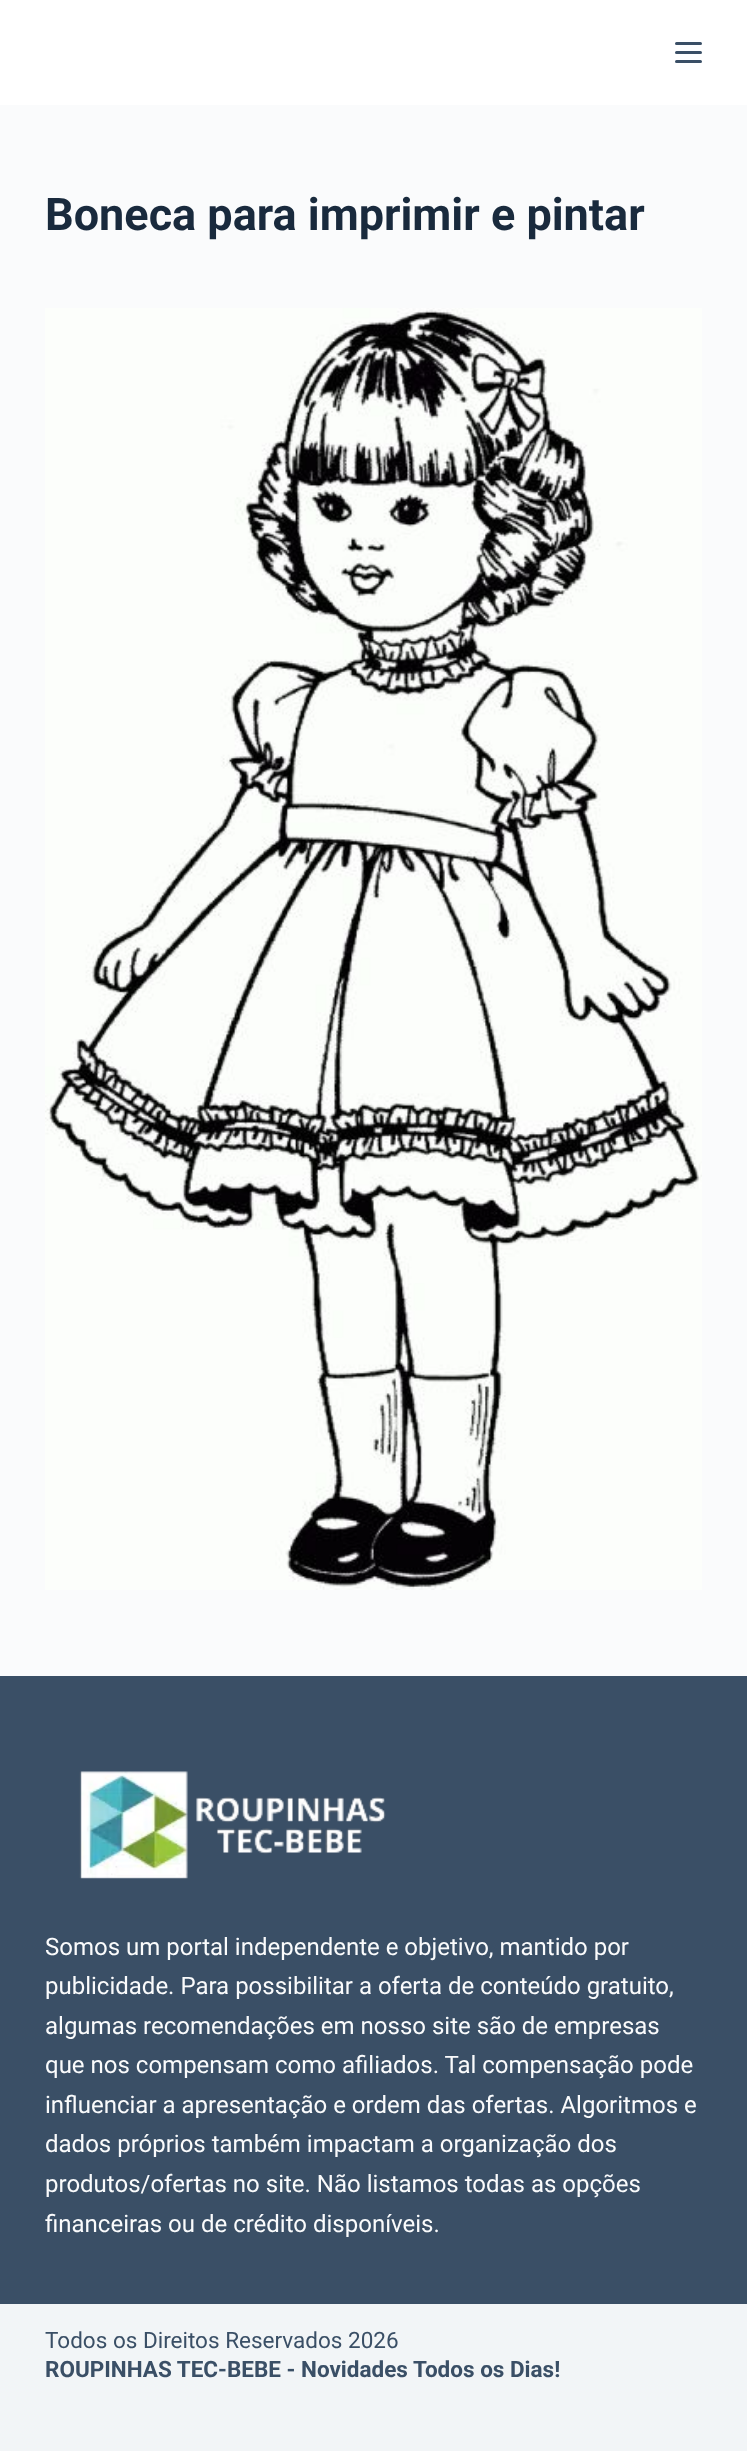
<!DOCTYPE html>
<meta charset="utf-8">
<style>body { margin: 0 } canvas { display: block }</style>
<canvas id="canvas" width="747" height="2451"></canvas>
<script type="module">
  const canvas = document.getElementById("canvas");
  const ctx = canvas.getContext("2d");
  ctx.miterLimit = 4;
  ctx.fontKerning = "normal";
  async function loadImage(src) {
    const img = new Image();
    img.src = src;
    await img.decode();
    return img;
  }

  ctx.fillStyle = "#fafbfc";
  ctx.fillRect(0, 0, 747, 2451);
  ctx.fillStyle = "#ffffff";
  ctx.fillRect(0, 0, 747, 105);
  ctx.fillStyle = "#3a4f66";
  ctx.beginPath();
  ctx.roundRect(675, 42, 27, 3, 1.5);
  ctx.fill();
  ctx.beginPath();
  ctx.roundRect(675, 51, 27, 3, 1.5);
  ctx.fill();
  ctx.beginPath();
  ctx.roundRect(675, 60, 27, 3, 1.5);
  ctx.fill();
  ctx.font = "bold 45px Roboto";
  ctx.fillStyle = "#192a3d";
  ctx.fillText("Boneca para imprimir e pintar", 45, 230);
  ctx.drawImage(await loadImage("img1.png"), 45, 308, 657, 1282);
  ctx.fillStyle = "#f2f5f7";
  ctx.fillRect(0, 2304, 747, 147);
  ctx.fillStyle = "#3a4f66";
  ctx.fillRect(0, 1676, 747, 628);
  ctx.drawImage(await loadImage("img2.png"), 79, 1771, 307, 108);
  ctx.font = "24px Roboto";
  ctx.fillStyle = "#fafbfc";
  ctx.fillText("Somos um portal independente e objetivo, mantido por", 45, 1955);
  ctx.fillText("publicidade. Para possibilitar a oferta de conteúdo gratuito,", 45, 1994);
  ctx.fillText("algumas recomendações em nosso site são de empresas", 45, 2034);
  ctx.fillText("que nos compensam como afiliados. Tal compensação pode", 45, 2073);
  ctx.fillText("influenciar a apresentação e ordem das ofertas. Algoritmos e", 45, 2113);
  ctx.fillText("dados próprios também impactam a organização dos", 45, 2152);
  ctx.fillText("produtos/ofertas no site. Não listamos todas as opções", 45, 2192);
  ctx.fillText("financeiras ou de crédito disponíveis.", 45, 2232);
  ctx.font = "22.5px Roboto";
  ctx.fillStyle = "#3a4f66";
  ctx.fillText("Todos os Direitos Reservados 2026", 45, 2348);
  ctx.font = "bold 22.5px Roboto";
  ctx.fillText("ROUPINHAS TEC-BEBE - Novidades Todos os Dias!", 45, 2377);
</script>
